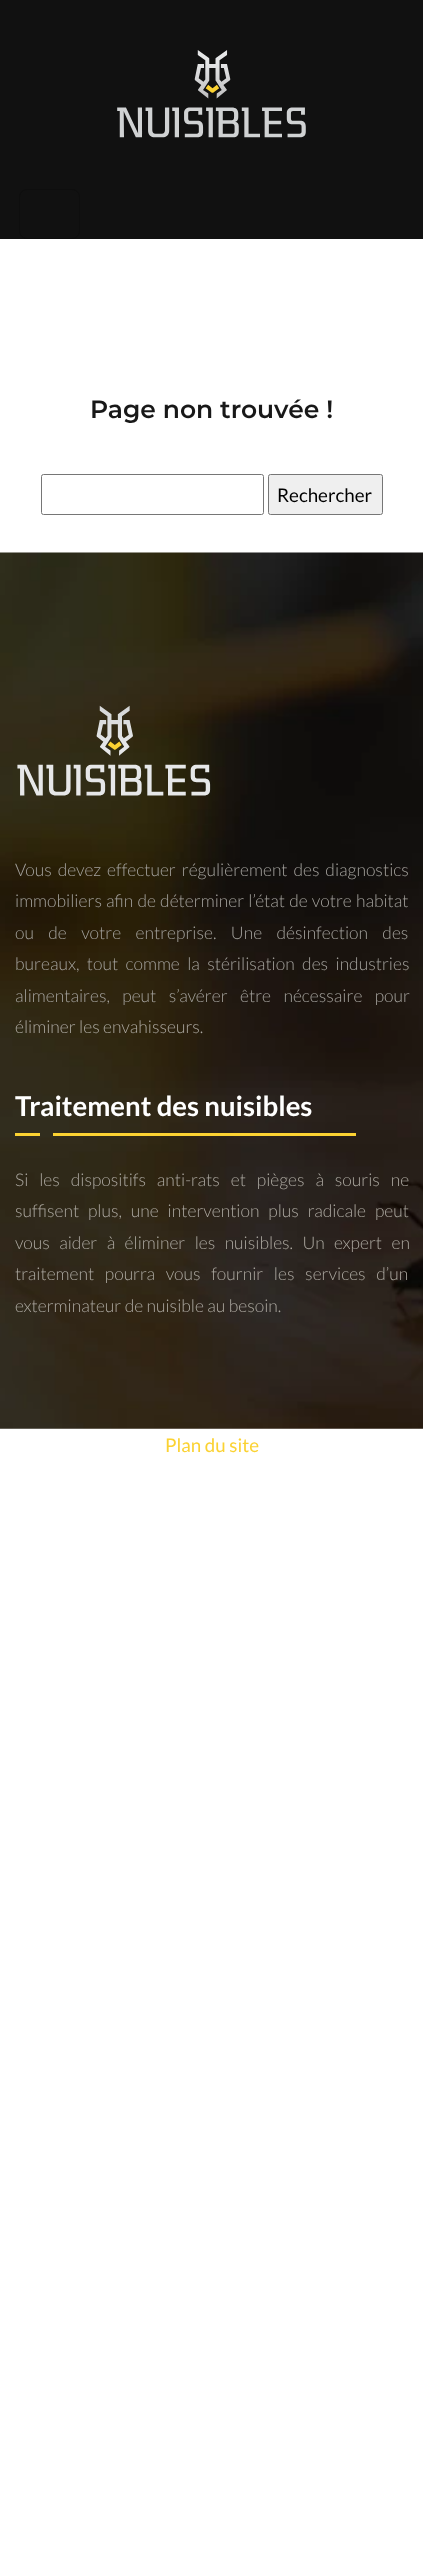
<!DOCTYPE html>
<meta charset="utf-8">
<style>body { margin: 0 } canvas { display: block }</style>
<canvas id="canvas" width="423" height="2551"></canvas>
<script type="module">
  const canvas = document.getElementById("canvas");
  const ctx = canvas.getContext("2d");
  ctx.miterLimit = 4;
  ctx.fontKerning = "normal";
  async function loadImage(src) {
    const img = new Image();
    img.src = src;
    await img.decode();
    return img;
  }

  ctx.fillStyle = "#ffffff";
  ctx.fillRect(0, 0, 423, 2551);
  ctx.fillStyle = "#111111";
  ctx.fillRect(0, 0, 423, 239);
  ctx.drawImage(await loadImage("img1.png"), 117, 50, 189, 88);
  ctx.beginPath();
  ctx.roundRect(19.5, 189.5, 60, 49, 7.5);
  ctx.strokeStyle = "#0e0e0e";
  ctx.stroke();
  ctx.font = "600 25px Montserrat";
  ctx.fillStyle = "#181818";
  ctx.fillText("Page non trouvée !", 90, 418);
  ctx.beginPath();
  ctx.roundRect(41.5, 474.5, 222, 40, 2);
  ctx.strokeStyle = "#767676";
  ctx.stroke();
  ctx.fillStyle = "#efefef";
  ctx.beginPath();
  ctx.roundRect(268.5, 474.5, 114, 40, 2);
  ctx.fill();
  ctx.stroke();
  ctx.font = "18.75px Lato";
  ctx.fillStyle = "#000000";
  ctx.fillText("Rechercher", 277, 502);
  ctx.drawImage(await loadImage("img2.png"), 0, 552, 423, 877);
  ctx.drawImage(await loadImage("img3.png"), 17, 705, 194, 91);
  ctx.wordSpacing = "2.5px";
  ctx.font = "300 17.5px Lato";
  ctx.fillStyle = "#a4a29d";
  ctx.fillText("Vous devez effectuer régulièrement des diagnostics", 15, 876);
  ctx.wordSpacing = "0.75px";
  ctx.fillText("immobiliers afin de déterminer l’état de votre habitat", 15, 907);
  ctx.wordSpacing = "11px";
  ctx.fillText("ou de votre entreprise. Une désinfection des", 15, 939);
  ctx.wordSpacing = "4px";
  ctx.fillText("bureaux, tout comme la stérilisation des industries", 15, 970);
  ctx.wordSpacing = "9px";
  ctx.fillText("alimentaires, peut s’avérer être nécessaire pour", 15, 1002);
  ctx.wordSpacing = "0px";
  ctx.fillStyle = "#aca8a0";
  ctx.fillText("éliminer les envahisseurs.", 15, 1033);
  ctx.font = "bold 27.5px Lato";
  ctx.fillStyle = "#ffffff";
  ctx.fillText("Traitement des nuisibles", 15, 1116);
  ctx.fillStyle = "#fbd232";
  ctx.fillRect(15, 1133, 25, 3);
  ctx.fillRect(53, 1133, 303, 3);
  ctx.wordSpacing = "7.5px";
  ctx.font = "300 17.5px Lato";
  ctx.fillStyle = "#aca8a0";
  ctx.fillText("Si les dispositifs anti-rats et pièges à souris ne", 15, 1186);
  ctx.wordSpacing = "5.5px";
  ctx.fillText("suffisent plus, une intervention plus radicale peut", 15, 1217);
  ctx.wordSpacing = "6px";
  ctx.fillText("vous aider à éliminer les nuisibles. Un expert en", 15, 1249);
  ctx.wordSpacing = "7.25px";
  ctx.fillText("traitement pourra vous fournir les services d’un", 15, 1280);
  ctx.wordSpacing = "0px";
  ctx.fillText("exterminateur de nuisible au besoin.", 15, 1312);
  ctx.font = "18.75px Lato";
  ctx.fillStyle = "#fbd232";
  ctx.fillText("Plan du site", 165, 1452);
</script>
